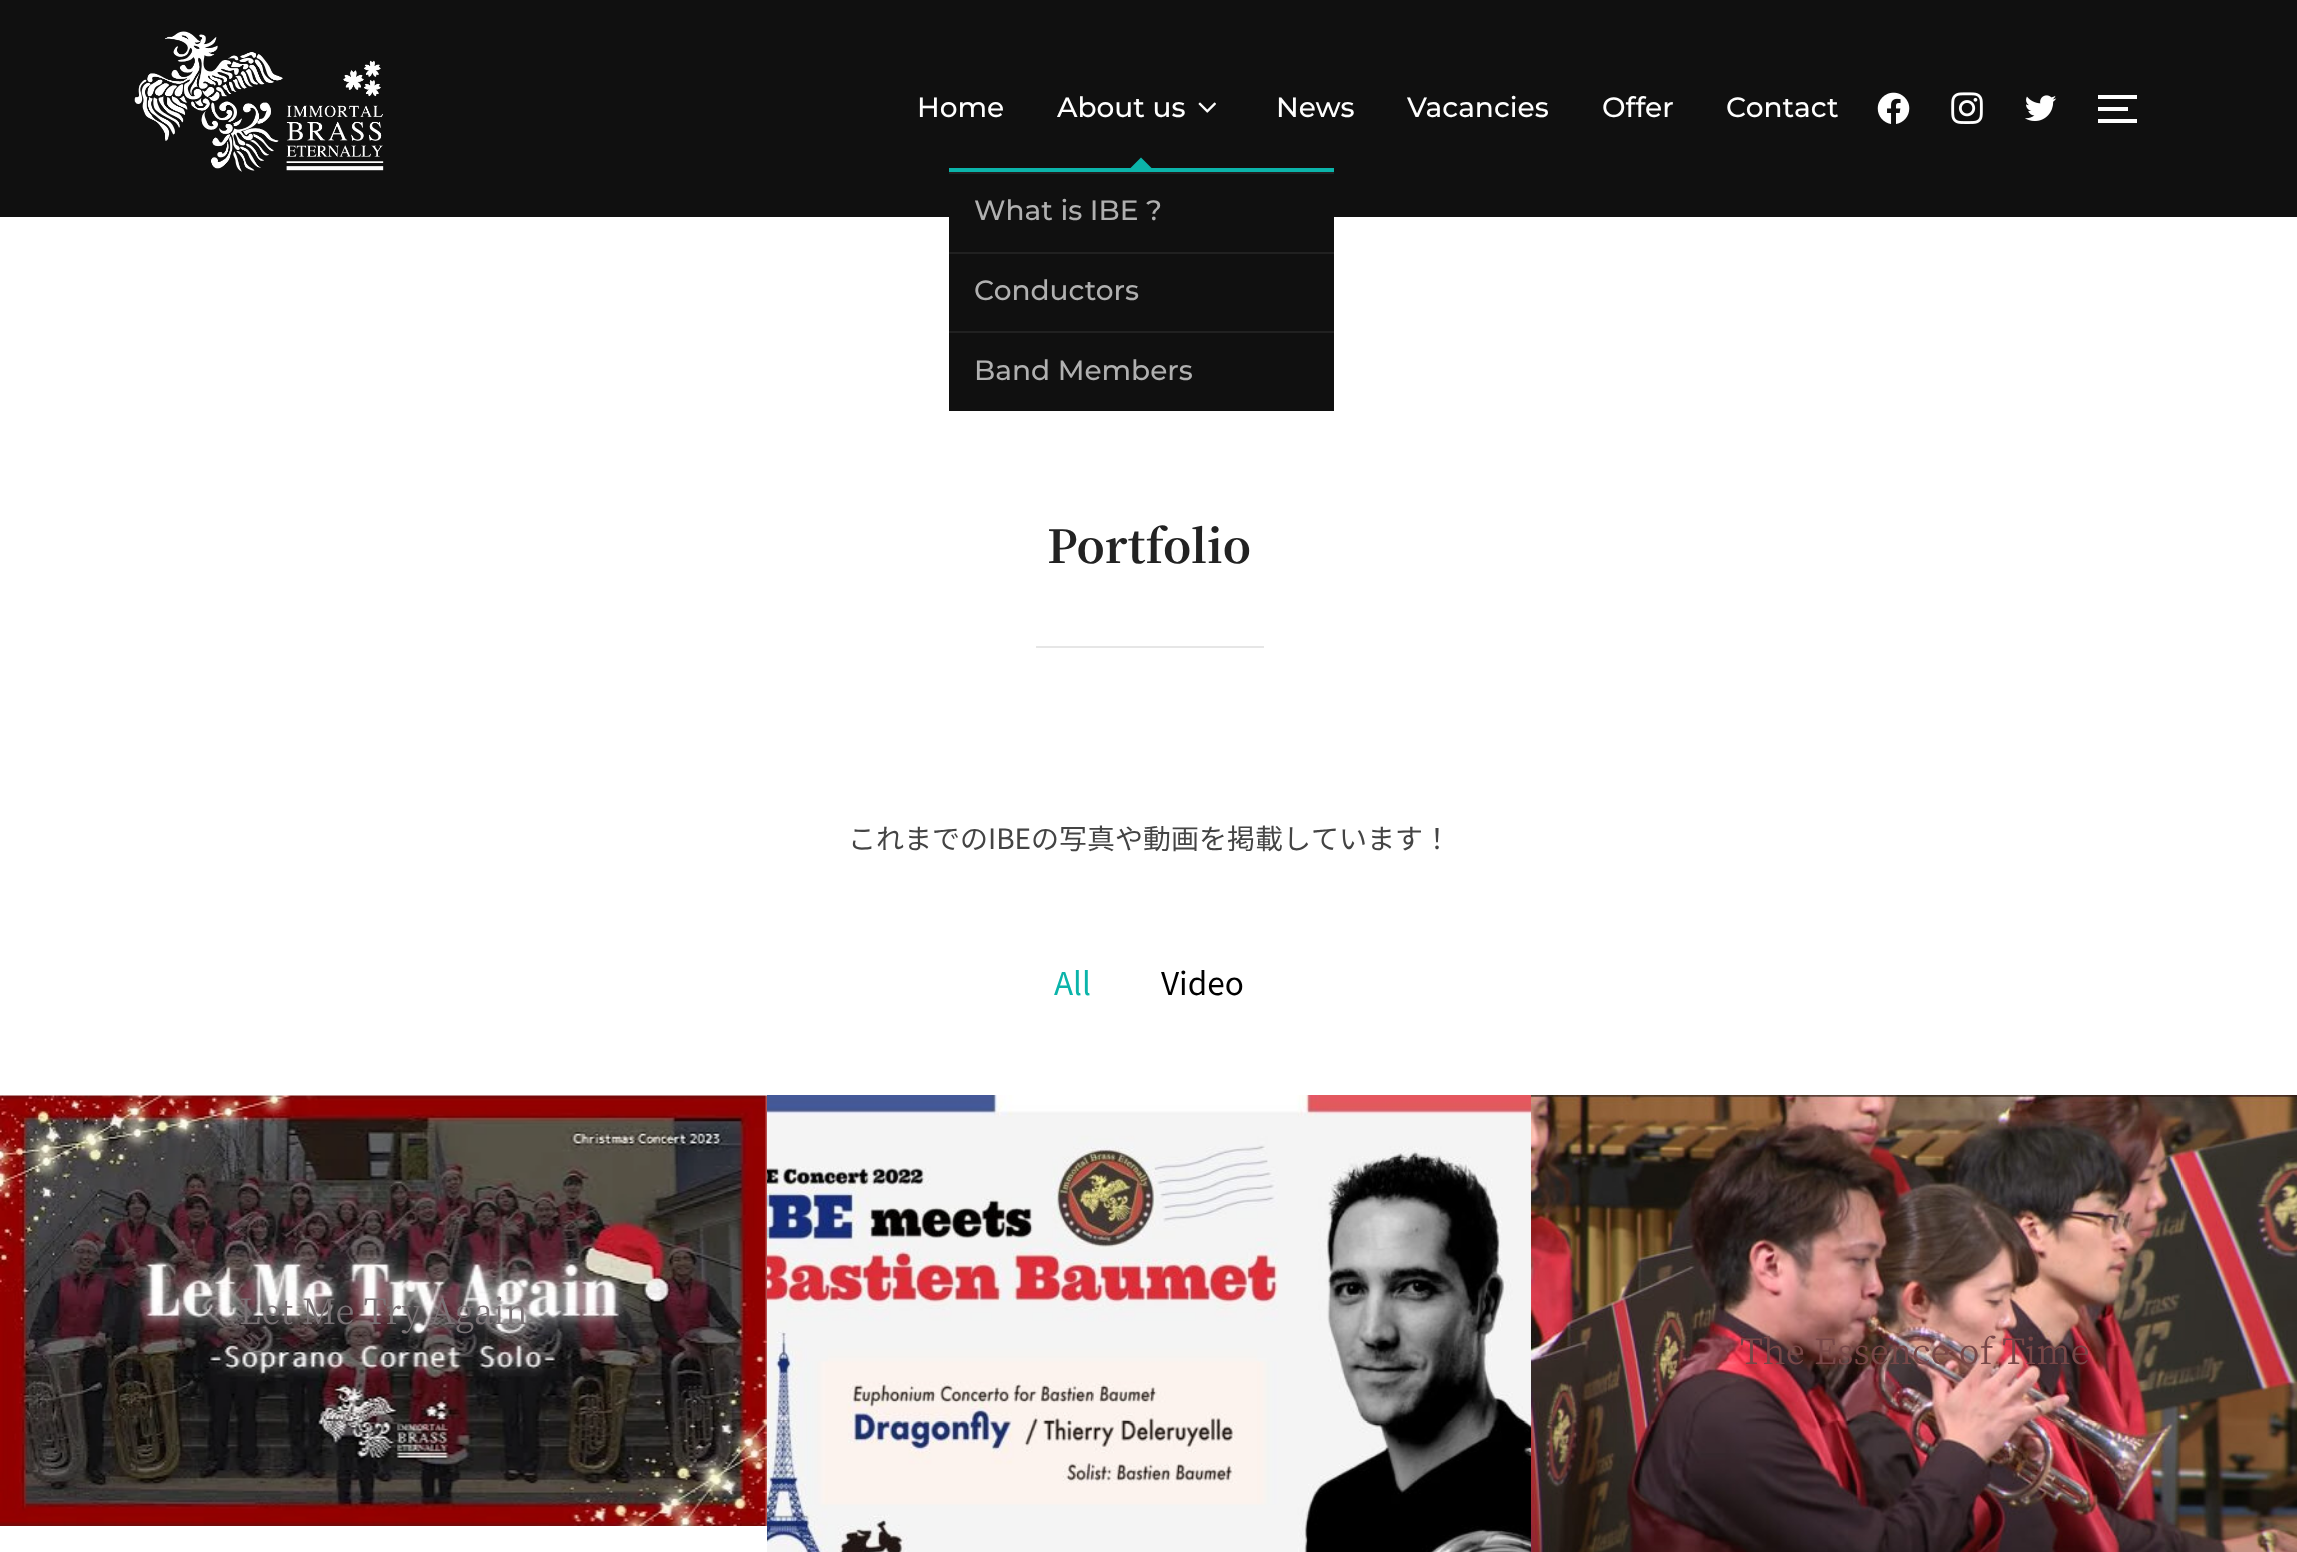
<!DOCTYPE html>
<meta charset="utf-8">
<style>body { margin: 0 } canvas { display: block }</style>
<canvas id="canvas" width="2297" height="1552"></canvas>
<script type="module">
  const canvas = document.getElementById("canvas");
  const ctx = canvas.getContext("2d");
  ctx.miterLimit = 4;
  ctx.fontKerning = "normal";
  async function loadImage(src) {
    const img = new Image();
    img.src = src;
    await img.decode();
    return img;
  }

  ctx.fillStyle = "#ffffff";
  ctx.fillRect(0, 0, 2297, 1552);
  ctx.fillStyle = "#101010";
  ctx.fillRect(0, 0, 2297, 217);
  ctx.drawImage(await loadImage("img1.png"), 134, 31, 250, 141);
  ctx.font = "500 28px Montserrat";
  ctx.fillStyle = "#ffffff";
  ctx.fillText("Home", 917, 117);
  ctx.fillText("About us", 1057, 117);
  ctx.drawImage(await loadImage("img2.png"), 1198, 102, 18, 11);
  ctx.fillStyle = "#101010";
  ctx.fillRect(949, 217, 385, 194);
  ctx.fillStyle = "#0bb4aa";
  ctx.fillRect(949, 168, 385, 4);
  ctx.beginPath();
  ctx.moveTo(1155, 171.5);
  ctx.lineTo(1127, 171.5);
  ctx.lineTo(1141, 157.5);
  ctx.closePath();
  ctx.fill();
  ctx.fillStyle = "#212121";
  ctx.fillRect(949, 172, 385, 2);
  ctx.fillStyle = "#b0b0b0";
  ctx.fillText("What is IBE ?", 974, 220);
  ctx.fillStyle = "#212121";
  ctx.fillRect(949, 252, 385, 2);
  ctx.fillStyle = "#b0b0b0";
  ctx.fillText("Conductors", 974, 300);
  ctx.fillStyle = "#212121";
  ctx.fillRect(949, 331, 385, 2);
  ctx.fillStyle = "#b0b0b0";
  ctx.fillText("Band Members", 974, 380);
  ctx.fillStyle = "#ffffff";
  ctx.fillText("News", 1276, 117);
  ctx.fillText("Vacancies", 1407, 117);
  ctx.fillText("Offer", 1602, 117);
  ctx.fillText("Contact", 1726, 117);
  ctx.drawImage(await loadImage("img3.png"), 1877, 92, 33, 32);
  ctx.drawImage(await loadImage("img4.png"), 1951, 92, 32, 32);
  ctx.drawImage(await loadImage("img5.png"), 2025, 95, 32, 26);
  ctx.fillRect(2098, 95, 39, 4);
  ctx.fillRect(2098, 107, 30, 4);
  ctx.fillRect(2098, 119, 39, 4);
  ctx.font = "bold 45.5px Noto Serif JP";
  ctx.fillStyle = "#222222";
  ctx.fillText("Portfolio", 1047, 563);
  ctx.fillStyle = "#e6e6e6";
  ctx.fillRect(1036, 646, 228, 2);
  ctx.font = "28px Noto Sans JP";
  ctx.fillStyle = "#444444";
  ctx.fillText("これまでのIBEの写真や動画を掲載しています！", 848, 849);
  ctx.font = "31.5px Noto Sans JP";
  ctx.fillStyle = "#0bb4aa";
  ctx.fillText("All", 1054, 995);
  ctx.fillStyle = "#000000";
  ctx.fillText("Video", 1161, 995);
  ctx.drawImage(await loadImage("img6.png"), 0, 1095, 767, 431);
  ctx.font = "35px Noto Serif JP";
  ctx.fillStyle = "#7b7376";
  ctx.fillText("Let Me Try Again", 239, 1324);
  ctx.drawImage(await loadImage("img7.png"), 767, 1095, 764, 457);
  ctx.drawImage(await loadImage("img8.png"), 1531, 1095, 766, 457);
  ctx.fillStyle = "#784748";
  ctx.fillText("The Essence of Time", 1740, 1364);
</script>
